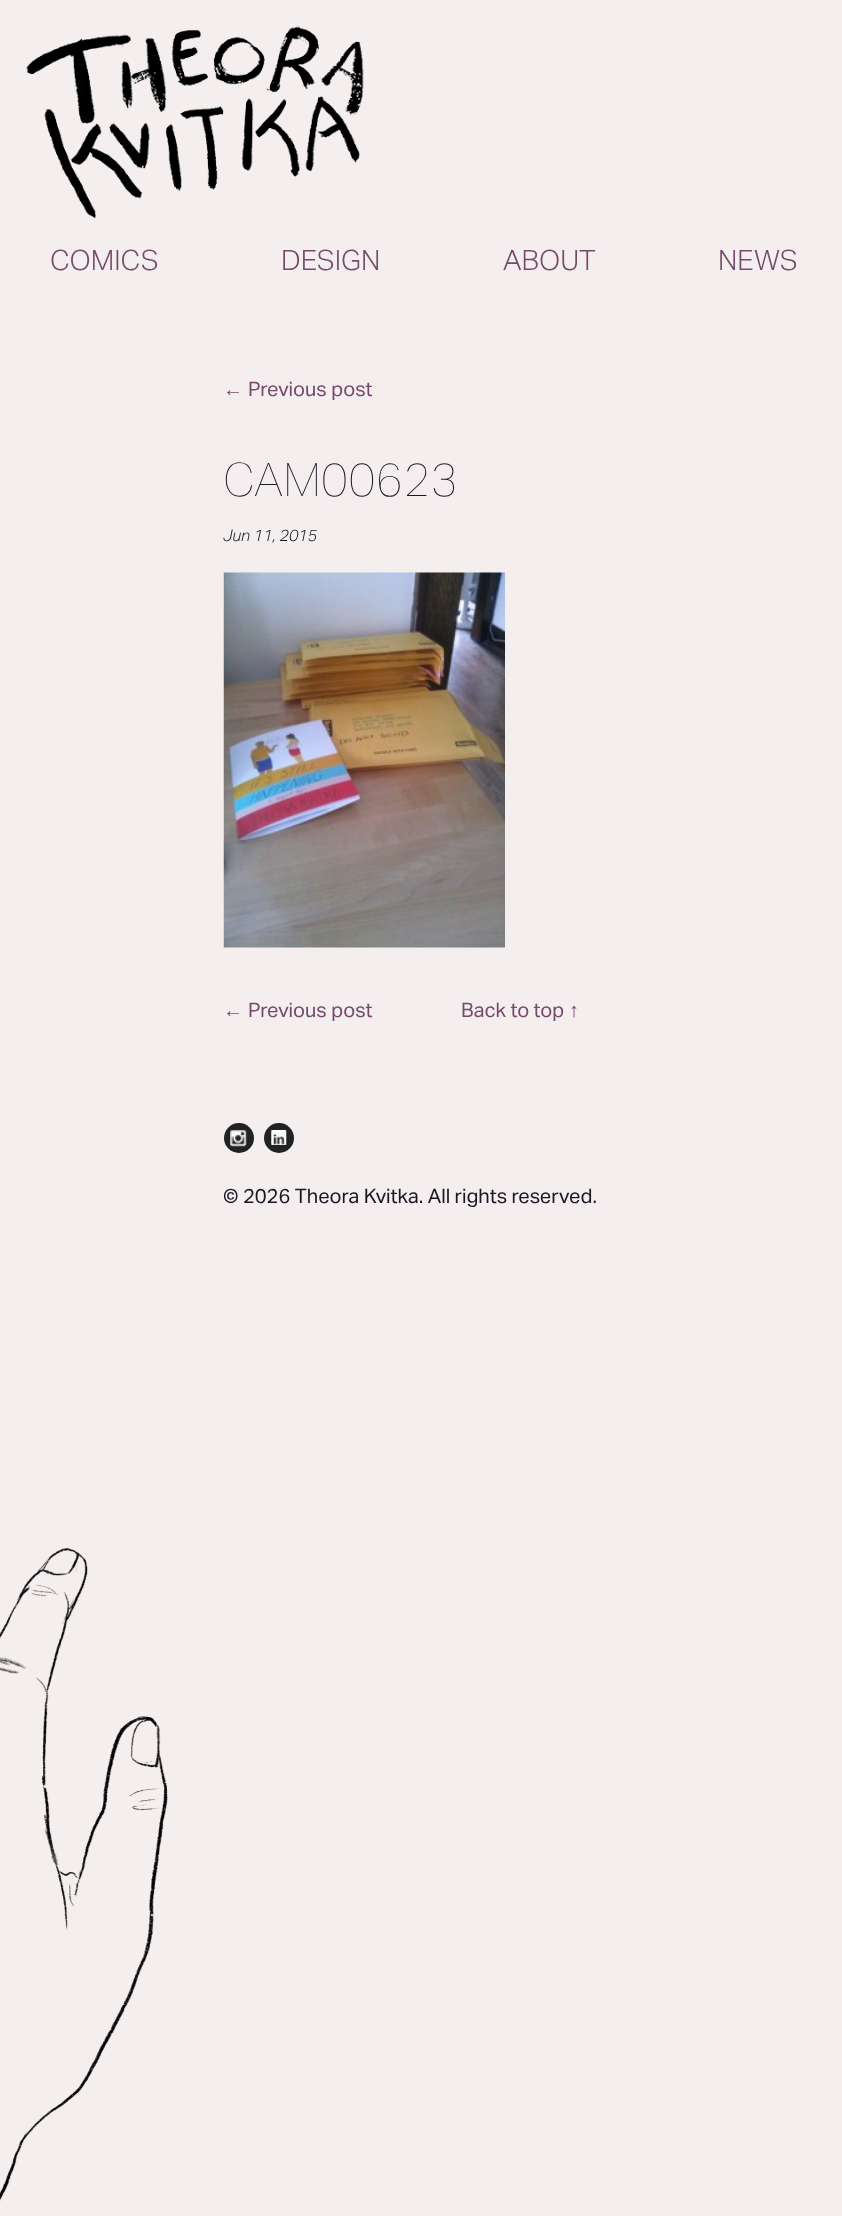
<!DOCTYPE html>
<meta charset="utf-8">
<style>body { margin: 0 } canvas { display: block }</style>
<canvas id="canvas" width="842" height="2216"></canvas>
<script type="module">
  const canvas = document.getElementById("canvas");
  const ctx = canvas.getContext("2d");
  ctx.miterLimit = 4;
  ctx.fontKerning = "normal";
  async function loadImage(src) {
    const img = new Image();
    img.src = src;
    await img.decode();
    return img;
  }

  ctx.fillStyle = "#f4efee";
  ctx.fillRect(0, 0, 842, 2216);
  ctx.drawImage(await loadImage("img1.png"), 26, 25, 338, 194);
  ctx.font = "300 28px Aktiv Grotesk";
  ctx.fillStyle = "#744b6d";
  ctx.fillText("COMICS", 50, 270);
  ctx.fillText("DESIGN", 281, 270);
  ctx.fillText("ABOUT", 503, 270);
  ctx.fillText("NEWS", 718, 270);
  ctx.font = "20px Liberation Sans";
  ctx.fillText("←", 223, 396);
  ctx.font = "20px Aktiv Grotesk";
  ctx.fillText("Previous post", 248, 396);
  ctx.font = "300 46.25px 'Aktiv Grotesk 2'";
  ctx.fillStyle = "#1a1826";
  ctx.fillText("CAM00623", 223, 496);
  ctx.font = "italic 300 16px Aktiv Grotesk";
  ctx.fillText("Jun 11, 2015", 223, 541);
  ctx.drawImage(await loadImage("img2.png"), 223, 572, 282, 376);
  ctx.font = "20px Liberation Sans";
  ctx.fillStyle = "#744b6d";
  ctx.fillText("←", 223, 1017);
  ctx.font = "20px Aktiv Grotesk";
  ctx.fillText("Previous post", 248, 1017);
  ctx.fillText("Back to top", 461, 1017);
  ctx.font = "20px Liberation Sans";
  ctx.fillText("↑", 569, 1017);
  ctx.fillStyle = "#222222";
  ctx.beginPath();
  ctx.arc(239, 1138, 15, 0, Math.PI * 2);
  ctx.fill();
  ctx.drawImage(await loadImage("img3.png"), 230, 1130, 17, 17);
  ctx.beginPath();
  ctx.arc(279, 1138, 15, 0, Math.PI * 2);
  ctx.fill();
  ctx.drawImage(await loadImage("img4.png"), 271, 1130, 16, 15);
  ctx.font = "20px Aktiv Grotesk";
  ctx.fillStyle = "#1a1826";
  ctx.fillText("© 2026 Theora Kvitka. All rights reserved.", 223, 1203);
  ctx.drawImage(await loadImage("img5.png"), 0, 1520, 168, 681);
</script>
